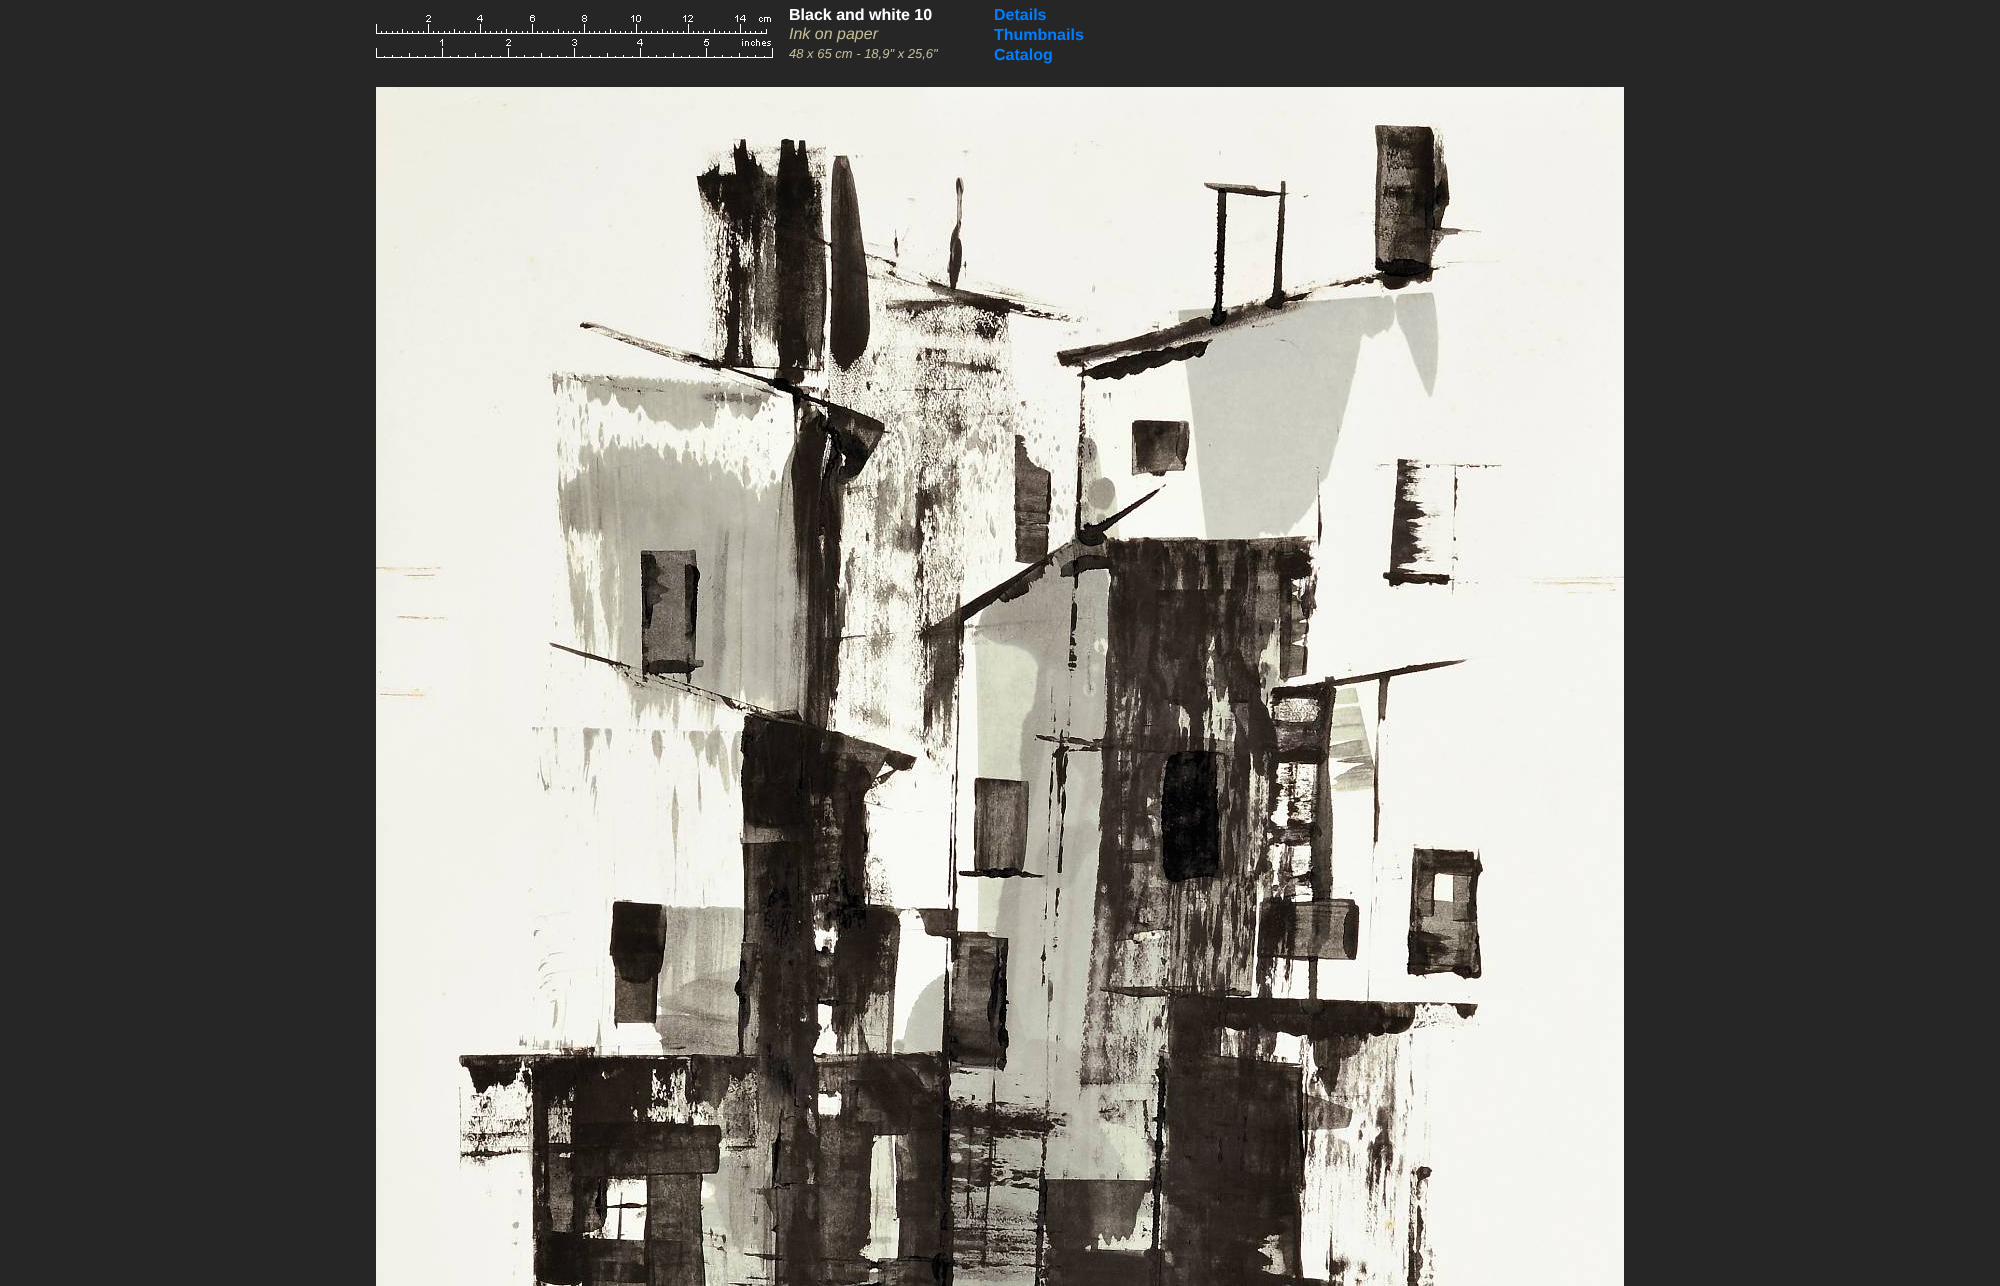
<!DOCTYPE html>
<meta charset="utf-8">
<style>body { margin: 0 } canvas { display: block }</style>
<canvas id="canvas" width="2000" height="1286"></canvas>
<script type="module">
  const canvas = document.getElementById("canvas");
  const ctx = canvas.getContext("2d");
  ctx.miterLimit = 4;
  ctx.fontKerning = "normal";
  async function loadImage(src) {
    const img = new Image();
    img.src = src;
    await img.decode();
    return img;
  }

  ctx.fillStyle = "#262626";
  ctx.fillRect(0, 0, 2000, 1286);
  ctx.drawImage(await loadImage("img1.png"), 376, 15, 397, 43);
  ctx.font = "bold 16px Liberation Sans";
  ctx.fillStyle = "#ffffff";
  ctx.fillText("Black and white 10", 789, 20);
  ctx.font = "italic 16px Liberation Sans";
  ctx.fillStyle = "#c4bd97";
  ctx.fillText("Ink on paper", 789, 39);
  ctx.font = "italic 13px Liberation Sans";
  ctx.fillText("48 x 65 cm - 18,9\" x 25,6\"", 789, 58);
  ctx.font = "bold 16px Liberation Sans";
  ctx.fillStyle = "#007eff";
  ctx.fillText("Details", 994, 20);
  ctx.fillText("Thumbnails", 994, 40);
  ctx.fillText("Catalog", 994, 60);
  ctx.drawImage(await loadImage("img2.png"), 376, 87, 1248, 1199);
</script>
